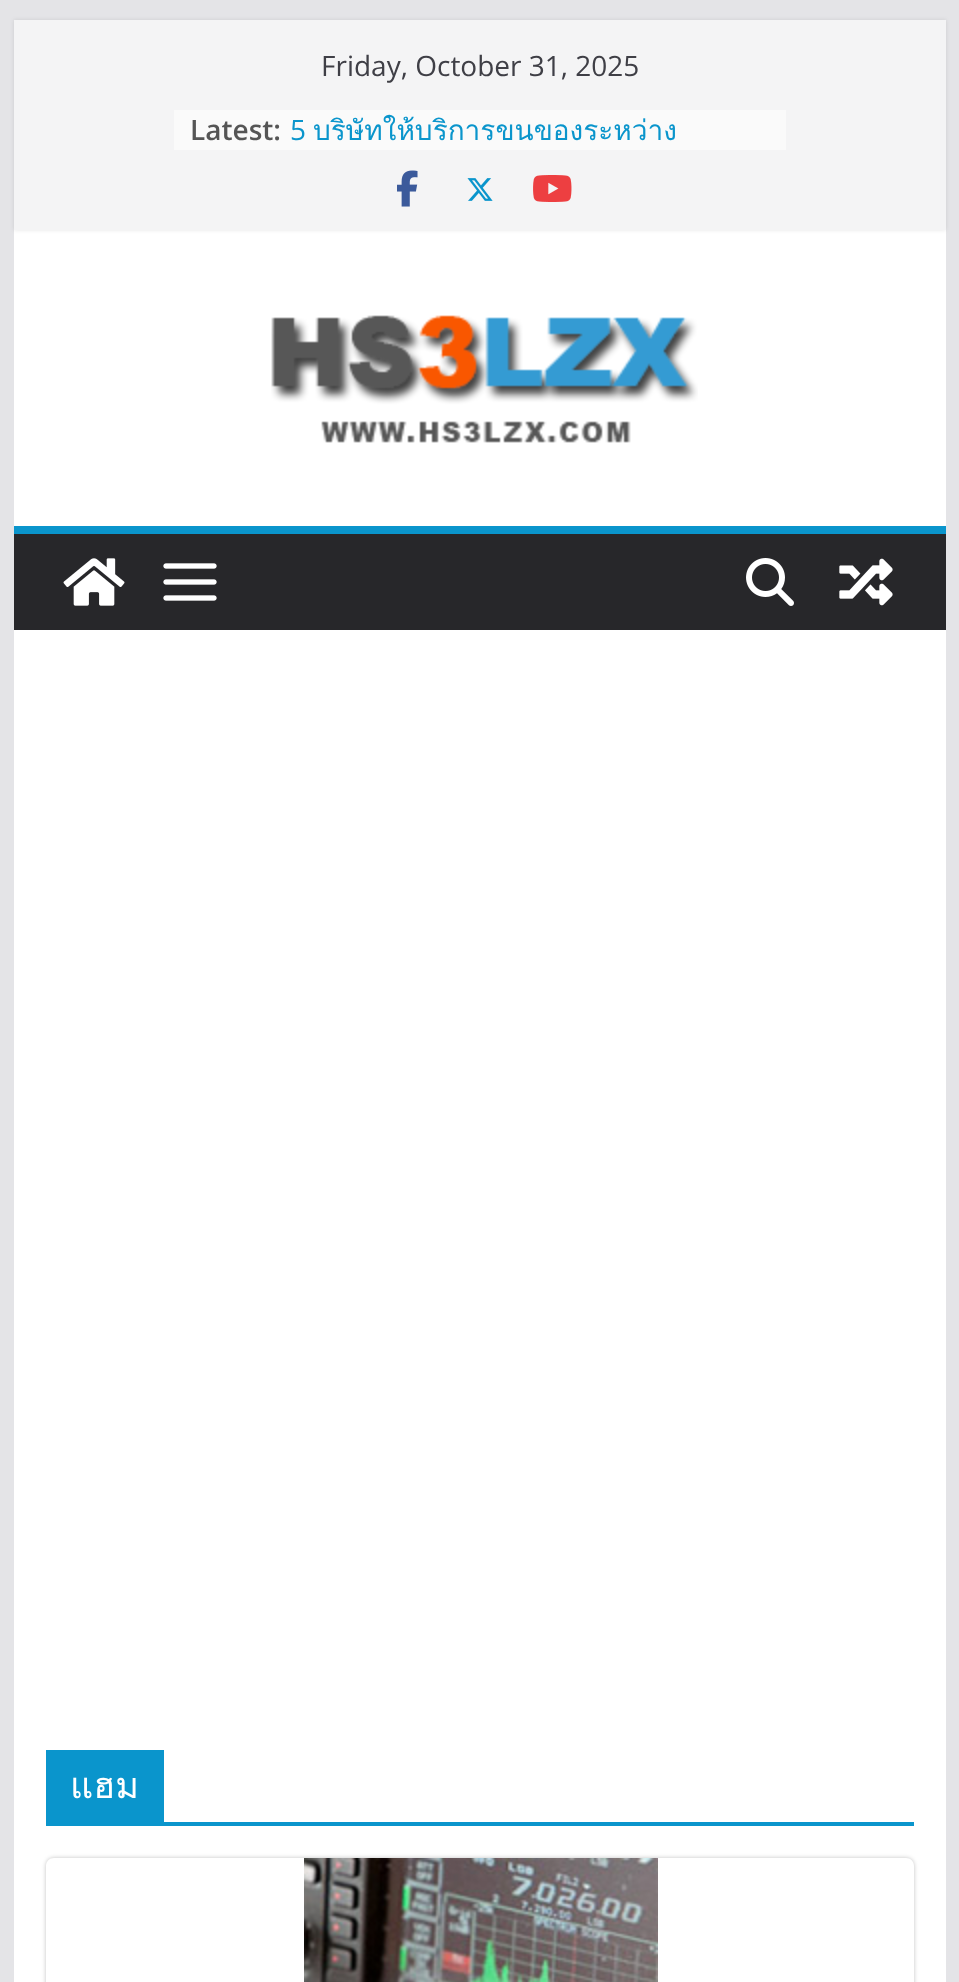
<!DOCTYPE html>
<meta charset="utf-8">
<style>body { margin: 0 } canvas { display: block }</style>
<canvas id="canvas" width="959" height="1982"></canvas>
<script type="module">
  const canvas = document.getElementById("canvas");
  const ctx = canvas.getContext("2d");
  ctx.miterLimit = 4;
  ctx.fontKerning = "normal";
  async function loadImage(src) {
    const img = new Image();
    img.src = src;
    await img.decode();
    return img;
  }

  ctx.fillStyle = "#e4e4e7";
  ctx.fillRect(0, 0, 959, 1982);
  ctx.fillStyle = "#ffffff";
  ctx.fillRect(14, 230, 932, 296);
  ctx.fillStyle = "rgba(0, 0, 0, 0.1)";
  ctx.filter = "blur(2px)";
  ctx.beginPath();
  ctx.rect(14, 20, 932, 210);
  ctx.fill();
  ctx.filter = "none";
  ctx.fillStyle = "#f4f4f5";
  ctx.fillRect(14, 20, 932, 210);
  ctx.font = "28px Open Sans";
  ctx.fillStyle = "#3f3f46";
  ctx.fillText("Friday, October 31, 2025", 321, 76);
  ctx.fillStyle = "#fafafa";
  ctx.fillRect(174, 110, 612, 40);
  ctx.font = "600 28px Open Sans";
  ctx.fillStyle = "#555555";
  ctx.fillText("Latest:", 190, 140);
  ctx.font = "28px Open Sans";
  ctx.fillStyle = "#0a95cc";
  ctx.fillText("5", 290, 140);
  ctx.font = "28px Loma";
  ctx.fillText("บริษัทให้บริการขนของระหว่าง", 313, 140);
  ctx.drawImage(await loadImage("img1.png"), 397, 170, 21, 37);
  ctx.drawImage(await loadImage("img2.png"), 467, 178, 26, 23);
  ctx.drawImage(await loadImage("img3.png"), 533, 175, 39, 27);
  ctx.drawImage(await loadImage("img4.png"), 271, 315, 427, 128);
  ctx.fillStyle = "#27272a";
  ctx.fillRect(14, 534, 932, 96);
  ctx.fillStyle = "#0a95cc";
  ctx.fillRect(14, 526, 932, 8);
  ctx.drawImage(await loadImage("img5.png"), 63, 558, 62, 48);
  ctx.drawImage(await loadImage("img6.png"), 163, 563, 54, 38);
  ctx.drawImage(await loadImage("img7.png"), 746, 558, 48, 48);
  ctx.drawImage(await loadImage("img8.png"), 839, 558, 54, 48);
  ctx.fillStyle = "#ffffff";
  ctx.fillRect(14, 630, 932, 1352);
  ctx.fillStyle = "#0a95cc";
  ctx.fillRect(46, 1822, 868, 4);
  ctx.fillRect(46, 1750, 118, 72);
  ctx.font = "36px Loma";
  ctx.fillStyle = "#ffffff";
  ctx.fillText("แฮม", 70, 1798);
  ctx.save();
  ctx.beginPath();
  ctx.moveTo(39, 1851);
  ctx.lineTo(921, 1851);
  ctx.lineTo(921, 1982);
  ctx.lineTo(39, 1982);
  ctx.closePath();
  ctx.moveTo(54, 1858);
  ctx.lineTo(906, 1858);
  ctx.bezierCurveTo(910.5, 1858, 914, 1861.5, 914, 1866);
  ctx.lineTo(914, 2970);
  ctx.bezierCurveTo(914, 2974.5, 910.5, 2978, 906, 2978);
  ctx.lineTo(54, 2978);
  ctx.bezierCurveTo(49.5, 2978, 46, 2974.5, 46, 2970);
  ctx.lineTo(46, 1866);
  ctx.bezierCurveTo(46, 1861.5, 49.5, 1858, 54, 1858);
  ctx.closePath();
  ctx.clip("evenodd");
  ctx.fillStyle = "rgba(0, 0, 0, 0.24)";
  ctx.filter = "blur(2px)";
  ctx.beginPath();
  ctx.roundRect(46, 1858, 868, 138, 8);
  ctx.fill();
  ctx.filter = "none";
  ctx.restore();
  ctx.drawImage(await loadImage("img9.png"), 304, 1858, 354, 124);
</script>
